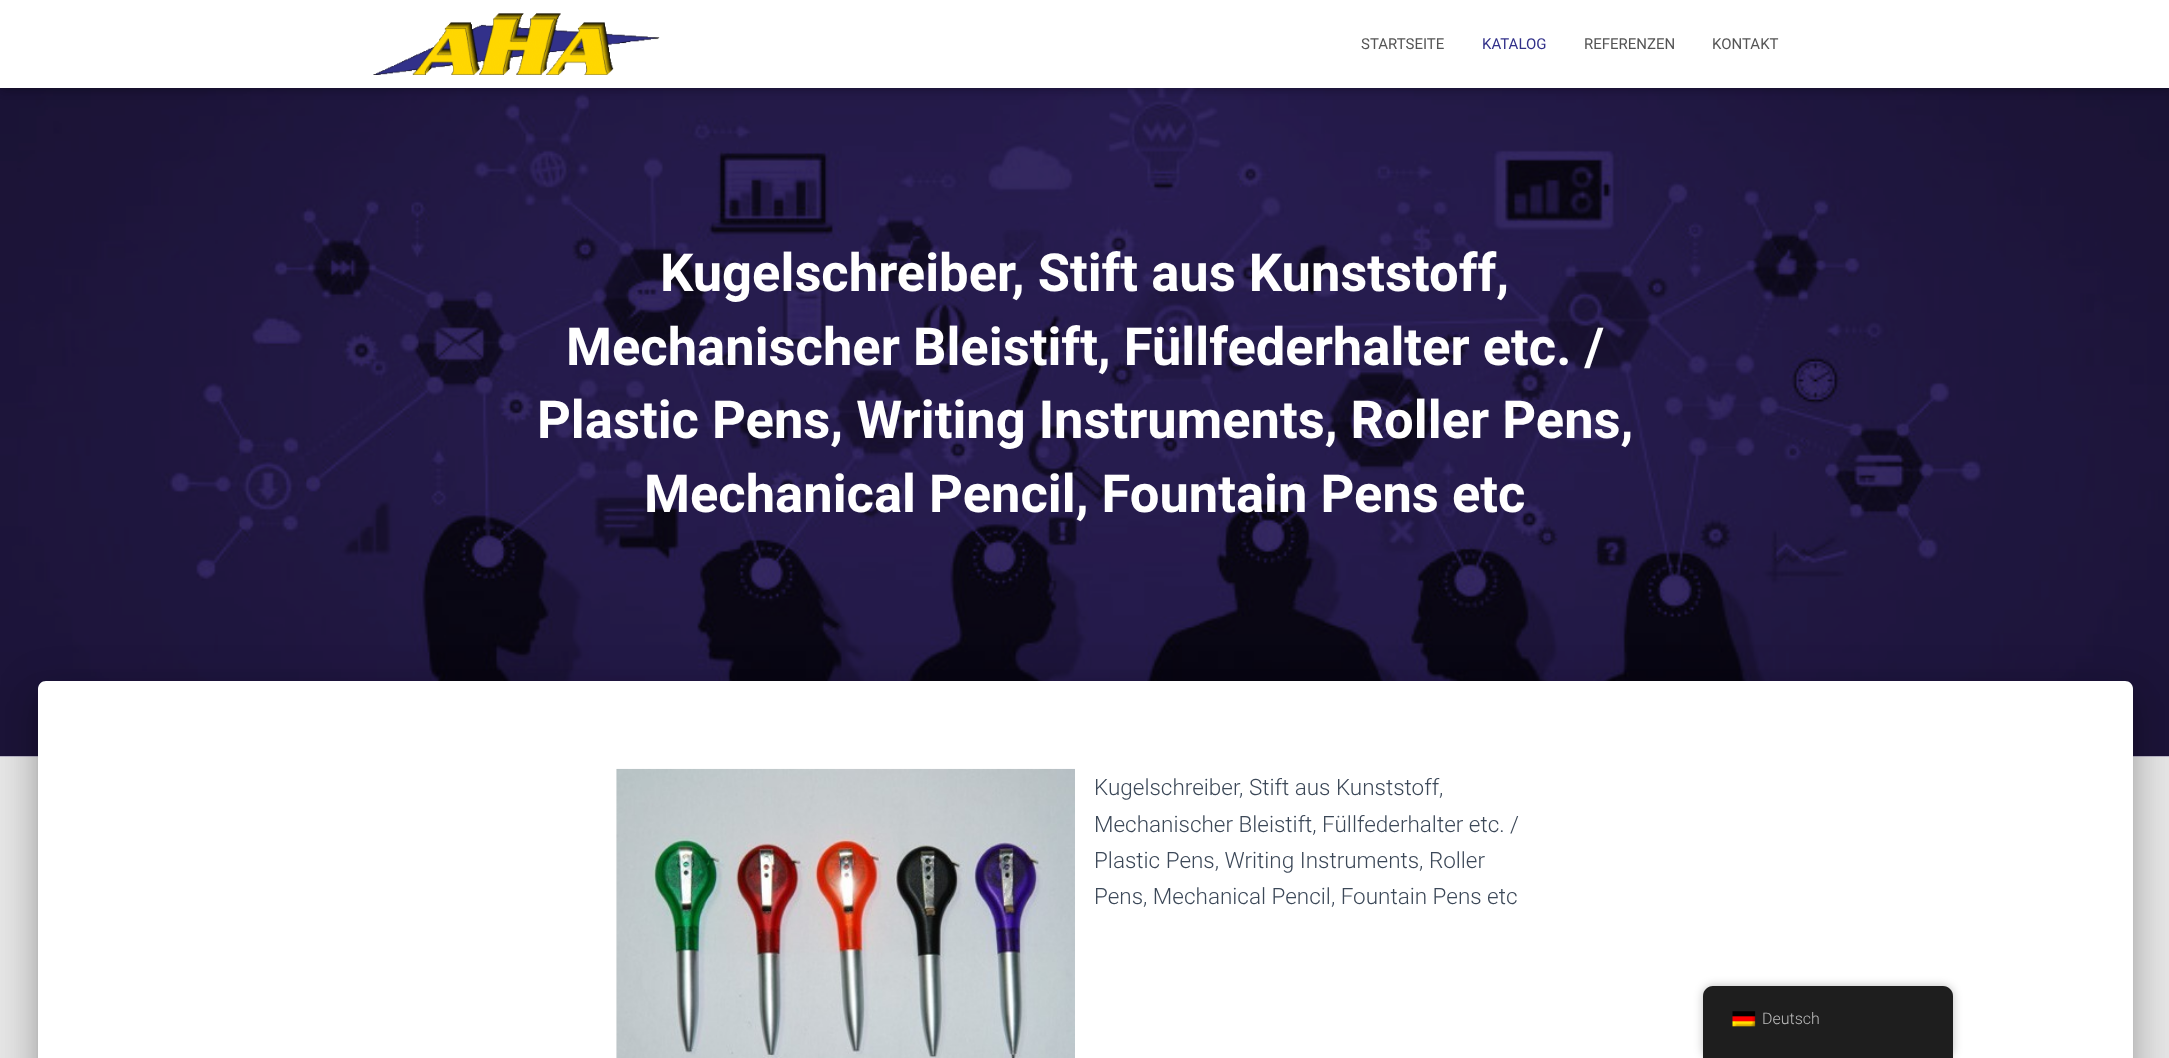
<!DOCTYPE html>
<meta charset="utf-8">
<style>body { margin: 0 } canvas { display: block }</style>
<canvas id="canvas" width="2169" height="1058"></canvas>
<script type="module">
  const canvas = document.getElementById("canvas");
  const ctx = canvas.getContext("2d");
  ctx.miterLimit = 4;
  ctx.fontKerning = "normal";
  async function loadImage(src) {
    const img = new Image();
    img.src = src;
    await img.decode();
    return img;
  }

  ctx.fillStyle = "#e5e5e5";
  ctx.fillRect(0, 0, 2169, 1058);
  ctx.drawImage(await loadImage("img2.png"), 0, 88, 2169, 669);
  ctx.fillStyle = "rgba(0, 0, 0, 0.1)";
  ctx.filter = "blur(3px)";
  ctx.beginPath();
  ctx.rect(3, 8, 2165, 82);
  ctx.fill();
  ctx.filter = "none";
  ctx.fillStyle = "rgba(0, 0, 0, 0.12)";
  ctx.filter = "blur(6px)";
  ctx.beginPath();
  ctx.rect(0, 1, 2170, 88);
  ctx.fill();
  ctx.filter = "none";
  ctx.fillStyle = "rgba(0, 0, 0, 0.42)";
  ctx.filter = "blur(6px)";
  ctx.beginPath();
  ctx.rect(8, 9, 2155, 72);
  ctx.fill();
  ctx.filter = "none";
  ctx.fillStyle = "#ffffff";
  ctx.fillRect(0, 0, 2169, 88);
  ctx.drawImage(await loadImage("img1.png"), 373, 13, 287, 62);
  ctx.font = "15px Roboto";
  ctx.fillStyle = "#555555";
  ctx.fillText("STARTSEITE", 1361, 49);
  ctx.fillStyle = "#32318a";
  ctx.fillText("KATALOG", 1482, 49);
  ctx.fillStyle = "#555555";
  ctx.fillText("REFERENZEN", 1584, 49);
  ctx.fillText("KONTAKT", 1712, 49);
  ctx.font = "bold 52.5px Roboto";
  ctx.fillStyle = "#ffffff";
  ctx.fillText("Kugelschreiber, Stift aus Kunststoff,", 660, 291);
  ctx.fillText("Mechanischer Bleistift, Füllfederhalter etc. /", 566, 365);
  ctx.fillText("Plastic Pens, Writing Instruments, Roller Pens,", 537, 438);
  ctx.fillText("Mechanical Pencil, Fountain Pens etc", 644, 512);
  ctx.fillStyle = "rgba(0, 0, 0, 0.2)";
  ctx.filter = "blur(6px)";
  ctx.beginPath();
  ctx.roundRect(44, 698, 2082, 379, 1);
  ctx.fill();
  ctx.filter = "none";
  ctx.fillStyle = "rgba(0, 0, 0, 0.12)";
  ctx.filter = "blur(19px)";
  ctx.beginPath();
  ctx.roundRect(31, 683, 2108, 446, 14);
  ctx.fill();
  ctx.filter = "none";
  ctx.fillStyle = "rgba(0, 0, 0, 0.14)";
  ctx.filter = "blur(15px)";
  ctx.beginPath();
  ctx.roundRect(35, 699, 2100, 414, 10);
  ctx.fill();
  ctx.filter = "none";
  ctx.fillStyle = "#ffffff";
  ctx.beginPath();
  ctx.moveTo(46, 681);
  ctx.lineTo(2125, 681);
  ctx.bezierCurveTo(2129.5, 681, 2133, 684.5, 2133, 689);
  ctx.lineTo(2133, 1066);
  ctx.lineTo(38, 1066);
  ctx.lineTo(38, 689);
  ctx.bezierCurveTo(38, 684.5, 41.5, 681, 46, 681);
  ctx.closePath();
  ctx.fill();
  ctx.drawImage(await loadImage("img3.png"), 616, 768, 459, 290);
  ctx.font = "300 22.5px Roboto";
  ctx.fillStyle = "#3c4858";
  ctx.fillText("Kugelschreiber, Stift aus Kunststoff,", 1094, 795);
  ctx.fillText("Mechanischer Bleistift, Füllfederhalter etc. /", 1094, 832);
  ctx.fillText("Plastic Pens, Writing Instruments, Roller", 1094, 868);
  ctx.fillText("Pens, Mechanical Pencil, Fountain Pens etc", 1094, 904);
  ctx.fillStyle = "rgba(0, 0, 0, 0.25)";
  ctx.filter = "blur(5px)";
  ctx.beginPath();
  ctx.roundRect(1703, 986, 250, 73, 10);
  ctx.fill();
  ctx.filter = "none";
  ctx.fillStyle = "#1e1e1e";
  ctx.beginPath();
  ctx.moveTo(1713, 986);
  ctx.lineTo(1943, 986);
  ctx.bezierCurveTo(1948.5, 986, 1953, 990.5, 1953, 996);
  ctx.lineTo(1953, 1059);
  ctx.lineTo(1703, 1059);
  ctx.lineTo(1703, 996);
  ctx.bezierCurveTo(1703, 990.5, 1707.5, 986, 1713, 986);
  ctx.closePath();
  ctx.fill();
  ctx.drawImage(await loadImage("img4.png"), 1732, 1011, 24, 16);
  ctx.font = "300 16px Roboto";
  ctx.fillStyle = "#bdbdbd";
  ctx.fillText("Deutsch", 1762, 1024);
</script>
